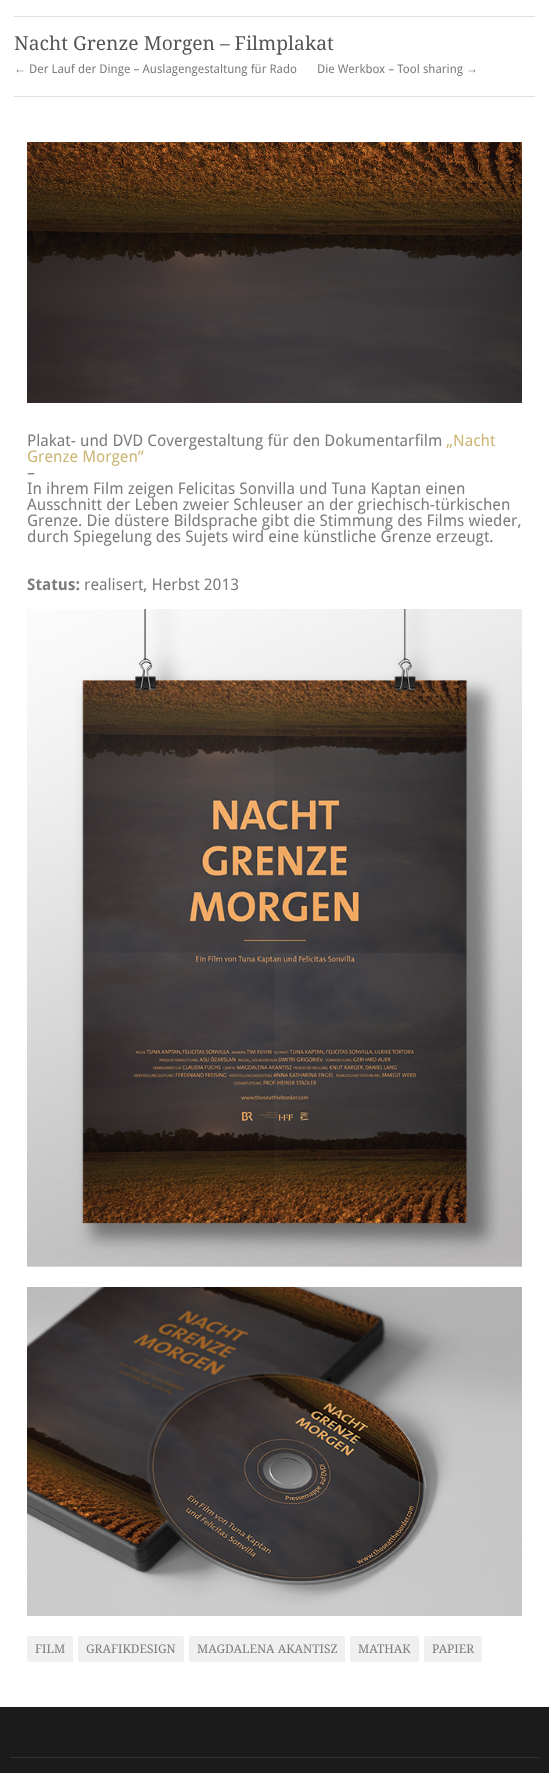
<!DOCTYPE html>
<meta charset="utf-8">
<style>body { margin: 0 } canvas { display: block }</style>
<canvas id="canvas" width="549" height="1773"></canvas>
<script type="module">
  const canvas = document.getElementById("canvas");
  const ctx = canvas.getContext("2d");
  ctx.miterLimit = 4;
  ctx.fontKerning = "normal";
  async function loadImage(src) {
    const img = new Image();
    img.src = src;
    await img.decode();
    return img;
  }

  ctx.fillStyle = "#1b1b1b";
  ctx.fillRect(0, 0, 549, 1773);
  ctx.fillStyle = "#ffffff";
  ctx.fillRect(0, 0, 549, 1707);
  ctx.fillStyle = "#dfdfde";
  ctx.fillRect(14, 16, 521, 1);
  ctx.fillRect(14, 96, 521, 1);
  ctx.font = "19.25px Droid Serif";
  ctx.fillStyle = "#555555";
  ctx.fillText("Nacht Grenze Morgen – Filmplakat", 14, 50);
  ctx.font = "12px Liberation Sans";
  ctx.fillStyle = "#7d7d7b";
  ctx.fillText("←", 14, 73);
  ctx.font = "12px Droid Sans";
  ctx.fillText("Der Lauf der Dinge – Auslagengestaltung für Rado", 29, 73);
  ctx.fillText("Die Werkbox – Tool sharing", 317, 73);
  ctx.font = "12px Liberation Sans";
  ctx.fillText("→", 466, 73);
  ctx.drawImage(await loadImage("img1.png"), 27, 142, 495, 261);
  ctx.font = "16px Droid Sans";
  ctx.fillText("Plakat- und DVD Covergestaltung für den Dokumentarfilm", 27, 446);
  ctx.fillStyle = "#ccb676";
  ctx.fillText("„Nacht", 446, 446);
  ctx.fillText("Grenze Morgen“", 27, 462);
  ctx.fillStyle = "#7d7d7b";
  ctx.fillText("–", 27, 478);
  ctx.fillText("In ihrem Film zeigen Felicitas Sonvilla und Tuna Kaptan einen", 27, 494);
  ctx.fillText("Ausschnitt der Leben zweier Schleuser an der griechisch-türkischen", 27, 510);
  ctx.fillText("Grenze. Die düstere Bildsprache gibt die Stimmung des Films wieder,", 27, 526);
  ctx.fillText("durch Spiegelung des Sujets wird eine künstliche Grenze erzeugt.", 27, 542);
  ctx.font = "bold 16px Droid Sans";
  ctx.fillText("Status:", 27, 590);
  ctx.font = "16px Droid Sans";
  ctx.fillText("realisert, Herbst 2013", 84, 590);
  ctx.drawImage(await loadImage("img2.png"), 27, 609, 495, 658);
  ctx.drawImage(await loadImage("img3.png"), 27, 1287, 495, 329);
  ctx.fillStyle = "#f0f0f0";
  ctx.beginPath();
  ctx.roundRect(27, 1636, 46, 26, 2);
  ctx.fill();
  ctx.font = "12px Droid Serif";
  ctx.fillStyle = "#7d7d7b";
  ctx.fillText("FILM", 35, 1653);
  ctx.fillStyle = "#f0f0f0";
  ctx.beginPath();
  ctx.roundRect(78, 1636, 106, 26, 2);
  ctx.fill();
  ctx.fillStyle = "#7d7d7b";
  ctx.fillText("GRAFIKDESIGN", 86, 1653);
  ctx.fillStyle = "#f0f0f0";
  ctx.beginPath();
  ctx.roundRect(189, 1636, 156, 26, 2);
  ctx.fill();
  ctx.fillStyle = "#7d7d7b";
  ctx.fillText("MAGDALENA AKANTISZ", 197, 1653);
  ctx.fillStyle = "#f0f0f0";
  ctx.beginPath();
  ctx.roundRect(350, 1636, 69, 26, 2);
  ctx.fill();
  ctx.fillStyle = "#7d7d7b";
  ctx.fillText("MATHAK", 358, 1653);
  ctx.fillStyle = "#f0f0f0";
  ctx.beginPath();
  ctx.roundRect(424, 1636, 58, 26, 2);
  ctx.fill();
  ctx.fillStyle = "#7d7d7b";
  ctx.fillText("PAPIER", 432, 1653);
  ctx.fillStyle = "#313131";
  ctx.fillRect(10, 1757, 529, 1);
</script>
